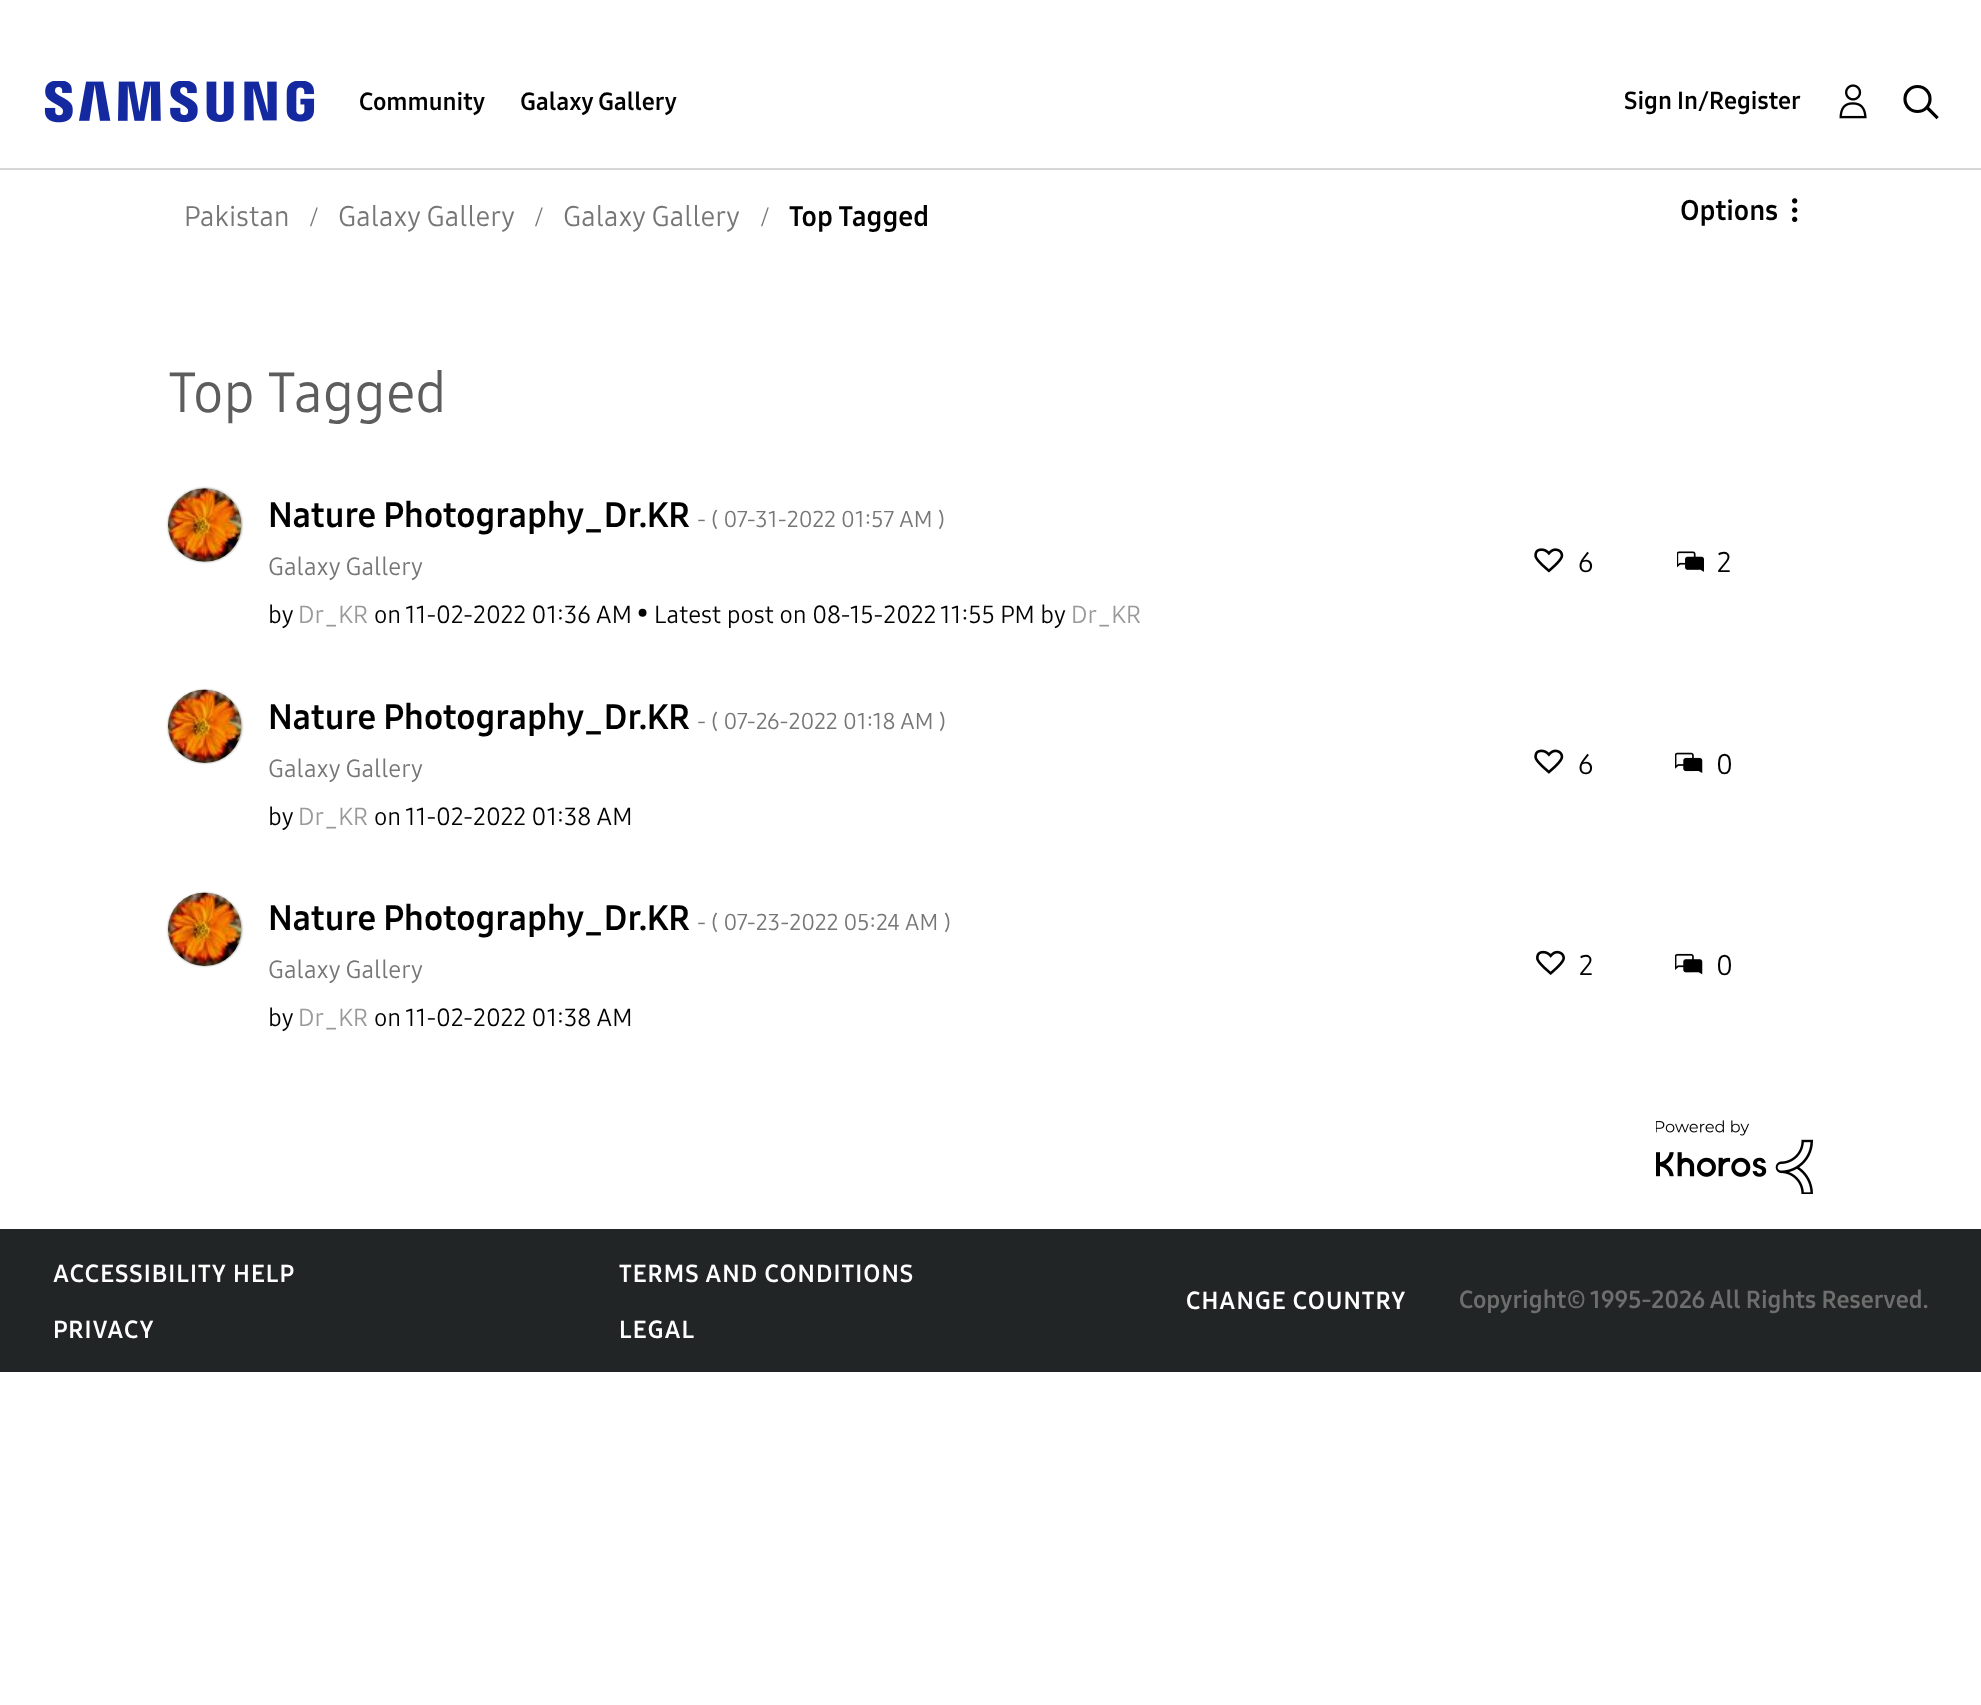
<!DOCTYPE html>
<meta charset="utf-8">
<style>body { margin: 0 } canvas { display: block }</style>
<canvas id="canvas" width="1981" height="1705"></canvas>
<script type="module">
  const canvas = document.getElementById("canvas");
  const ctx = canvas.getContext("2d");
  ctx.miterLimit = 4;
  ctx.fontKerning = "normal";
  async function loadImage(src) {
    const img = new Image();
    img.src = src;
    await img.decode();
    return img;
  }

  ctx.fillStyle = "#ffffff";
  ctx.fillRect(0, 0, 1981, 1705);
  ctx.fillStyle = "#d6d6d6";
  ctx.fillRect(0, 168, 1981, 2);
  ctx.drawImage(await loadImage("img1.png"), 44, 81, 271, 42);
  ctx.font = "bold 24.5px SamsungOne";
  ctx.fillStyle = "#000000";
  ctx.fillText("Community", 359, 110);
  ctx.fillText("Galaxy Gallery", 520, 110);
  ctx.fillText("Sign In/Register", 1624, 109);
  ctx.drawImage(await loadImage("img2.png"), 1839, 84, 28, 35);
  ctx.beginPath();
  ctx.arc(1917.5, 99, 12.5, 0, Math.PI * 2);
  ctx.strokeStyle = "#000000";
  ctx.lineWidth = 3.2;
  ctx.stroke();
  ctx.beginPath();
  ctx.moveTo(1928.5, 109);
  ctx.lineTo(1936.5, 117);
  ctx.lineCap = "square";
  ctx.stroke();
  ctx.font = "28px SamsungOne";
  ctx.fillStyle = "#767676";
  ctx.fillText("Pakistan", 184, 226);
  ctx.font = "28px Liberation Serif";
  ctx.fillText("/", 310, 226);
  ctx.font = "28px SamsungOne";
  ctx.fillText("Galaxy Gallery", 338, 226);
  ctx.font = "28px Liberation Serif";
  ctx.fillText("/", 535, 226);
  ctx.font = "28px SamsungOne";
  ctx.fillText("Galaxy Gallery", 563, 226);
  ctx.font = "28px Liberation Serif";
  ctx.fillText("/", 761, 226);
  ctx.font = "bold 28px SamsungOne";
  ctx.fillStyle = "#000000";
  ctx.fillText("Top Tagged", 789, 226);
  ctx.fillText("Options", 1680, 220);
  ctx.drawImage(await loadImage("img3.png"), 1792, 198, 6, 24);
  ctx.font = "56px SamsungOne";
  ctx.fillStyle = "#5d5d5d";
  ctx.fillText("Top Tagged", 168, 412);
  ctx.fillStyle = "#999999";
  ctx.filter = "blur(1px)";
  ctx.beginPath();
  ctx.roundRect(168, 488, 74, 74, 37);
  ctx.fill();
  ctx.filter = "none";
  ctx.drawImage(await loadImage("img4.png"), 168, 488, 74, 74);
  ctx.font = "bold 35px SamsungOne";
  ctx.fillStyle = "#000000";
  ctx.fillText("Nature Photography_Dr.KR", 268, 527);
  ctx.font = "22.75px SamsungOne";
  ctx.fillStyle = "#767676";
  ctx.fillText("- ( 07-31-2022 01:57 AM )", 697, 527);
  ctx.font = "24.5px SamsungOne";
  ctx.fillText("Galaxy Gallery", 268, 575);
  ctx.fillStyle = "#000000";
  ctx.fillText("by", 268, 623);
  ctx.fillStyle = "#999999";
  ctx.fillText("Dr_KR", 298, 623);
  ctx.fillStyle = "#000000";
  ctx.fillText("on", 374, 623);
  ctx.fillText("11-02-2022 01:36 AM", 405, 623);
  ctx.fillText("•", 637, 621);
  ctx.fillText("Latest post on 08-15-2022", 654, 623);
  ctx.fillText("11:55 PM by", 940, 623);
  ctx.fillStyle = "#999999";
  ctx.fillText("Dr_KR", 1071, 623);
  ctx.drawImage(await loadImage("img5.png"), 1534, 548, 30, 25);
  ctx.font = "28px SamsungOne";
  ctx.fillStyle = "#000000";
  ctx.fillText("6", 1578, 572);
  ctx.drawImage(await loadImage("img6.png"), 1677, 551, 27, 21);
  ctx.fillText("2", 1717, 572);
  ctx.fillStyle = "#999999";
  ctx.filter = "blur(1px)";
  ctx.beginPath();
  ctx.roundRect(168, 690, 74, 73, 36.5);
  ctx.fill();
  ctx.filter = "none";
  ctx.drawImage(await loadImage("img7.png"), 168, 689, 74, 74);
  ctx.font = "bold 35px SamsungOne";
  ctx.fillStyle = "#000000";
  ctx.fillText("Nature Photography_Dr.KR", 268, 729);
  ctx.font = "22.75px SamsungOne";
  ctx.fillStyle = "#767676";
  ctx.fillText("- ( 07-26-2022 01:18 AM )", 697, 729);
  ctx.font = "24.5px SamsungOne";
  ctx.fillText("Galaxy Gallery", 268, 777);
  ctx.fillStyle = "#000000";
  ctx.fillText("by", 268, 825);
  ctx.fillStyle = "#999999";
  ctx.fillText("Dr_KR", 298, 825);
  ctx.fillStyle = "#000000";
  ctx.fillText("on", 374, 825);
  ctx.fillText("11-02-2022 01:38 AM", 405, 825);
  ctx.drawImage(await loadImage("img8.png"), 1534, 749, 30, 25);
  ctx.font = "28px SamsungOne";
  ctx.fillText("6", 1578, 774);
  ctx.drawImage(await loadImage("img9.png"), 1675, 752, 28, 21);
  ctx.fillText("0", 1716, 774);
  ctx.fillStyle = "#999999";
  ctx.filter = "blur(1px)";
  ctx.beginPath();
  ctx.roundRect(168, 893, 74, 73, 36.5);
  ctx.fill();
  ctx.filter = "none";
  ctx.drawImage(await loadImage("img7.png"), 168, 892, 74, 74);
  ctx.font = "bold 35px SamsungOne";
  ctx.fillStyle = "#000000";
  ctx.fillText("Nature Photography_Dr.KR", 268, 930);
  ctx.font = "22.75px SamsungOne";
  ctx.fillStyle = "#767676";
  ctx.fillText("- ( 07-23-2022 05:24 AM )", 697, 930);
  ctx.font = "24.5px SamsungOne";
  ctx.fillText("Galaxy Gallery", 268, 978);
  ctx.fillStyle = "#000000";
  ctx.fillText("by", 268, 1026);
  ctx.fillStyle = "#999999";
  ctx.fillText("Dr_KR", 298, 1026);
  ctx.fillStyle = "#000000";
  ctx.fillText("on", 374, 1026);
  ctx.fillText("11-02-2022 01:38 AM", 405, 1026);
  ctx.drawImage(await loadImage("img10.png"), 1536, 950, 29, 25);
  ctx.font = "28px SamsungOne";
  ctx.fillText("2", 1579, 975);
  ctx.drawImage(await loadImage("img11.png"), 1675, 953, 28, 22);
  ctx.fillText("0", 1716, 975);
  ctx.drawImage(await loadImage("img12.png"), 1656, 1120, 157, 74);
  ctx.fillStyle = "#222525";
  ctx.fillRect(0, 1229, 1981, 143);
  ctx.letterSpacing = "1.05px";
  ctx.font = "bold 24.5px SamsungOne";
  ctx.fillStyle = "#ffffff";
  ctx.fillText("ACCESSIBILITY HELP", 53, 1282);
  ctx.fillText("TERMS AND CONDITIONS", 619, 1282);
  ctx.fillText("PRIVACY", 53, 1338);
  ctx.fillText("LEGAL", 619, 1338);
  ctx.fillText("CHANGE COUNTRY", 1186, 1309);
  ctx.letterSpacing = "0px";
  ctx.fillStyle = "#6e6e6e";
  ctx.fillText("Copyright© 1995-2026 All Rights Reserved.", 1459, 1308);
</script>
